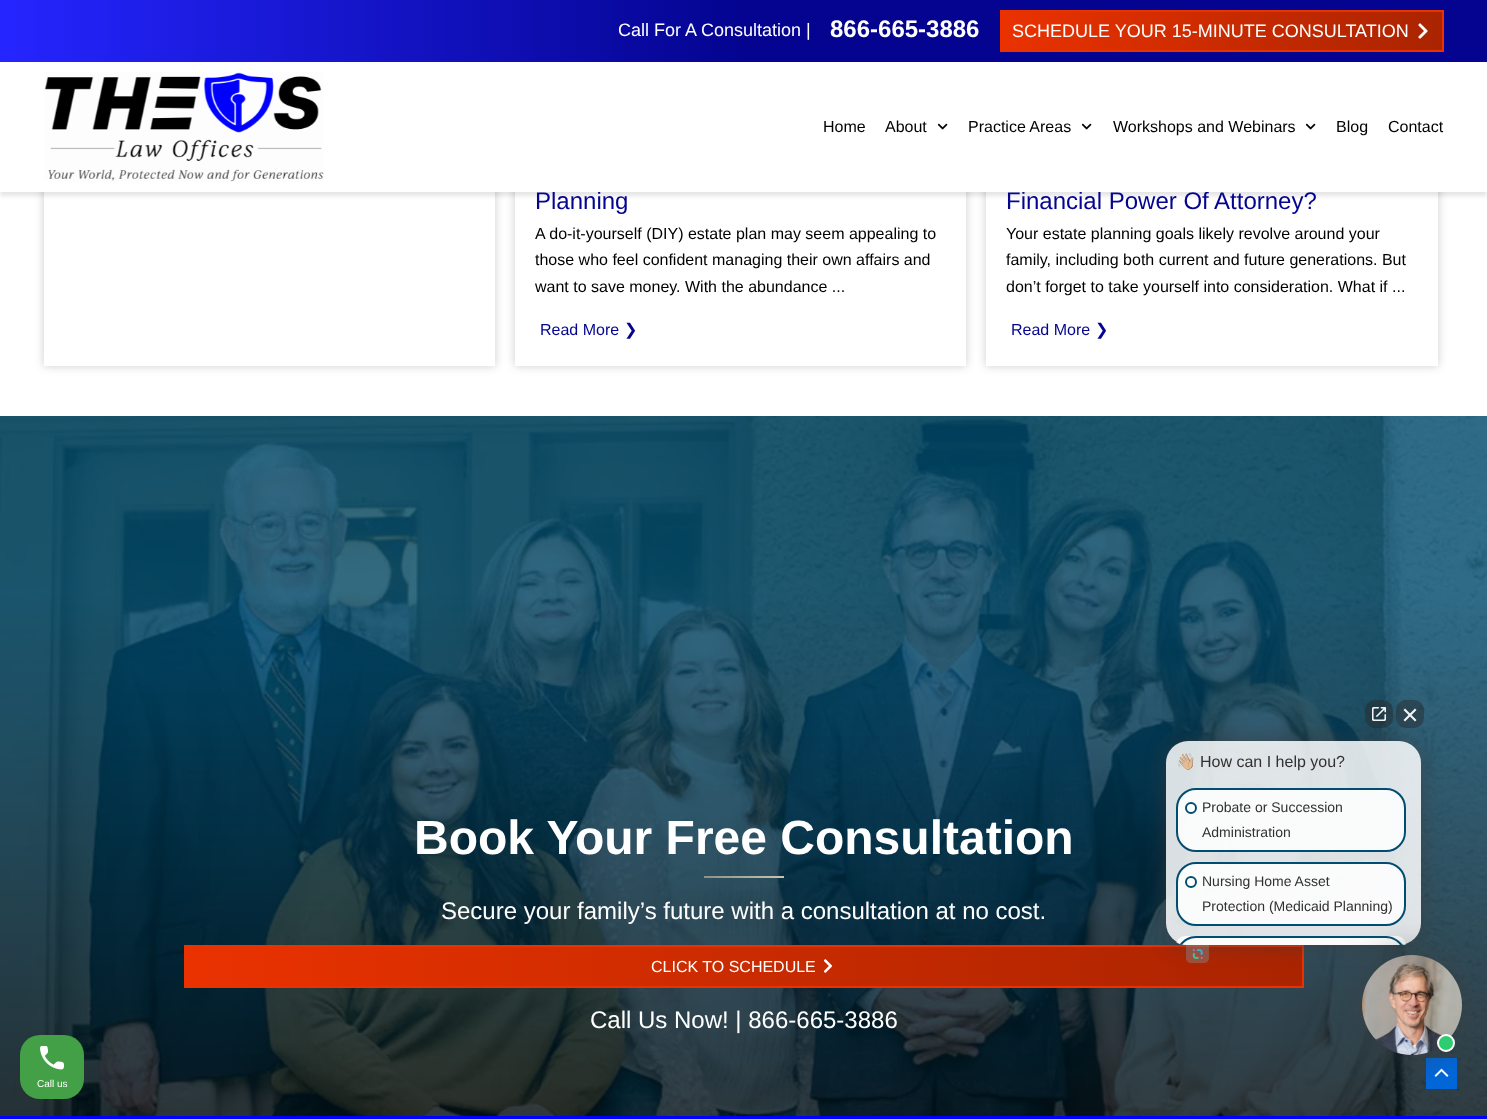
<!DOCTYPE html>
<meta charset="utf-8">
<style>body { margin: 0 } canvas { display: block }</style>
<canvas id="canvas" width="1487" height="1119"></canvas>
<script type="module">
  const canvas = document.getElementById("canvas");
  const ctx = canvas.getContext("2d");
  ctx.miterLimit = 4;
  ctx.fontKerning = "normal";
  async function loadImage(src) {
    const img = new Image();
    img.src = src;
    await img.decode();
    return img;
  }
  let gradient;

  ctx.fillStyle = "#ffffff";
  ctx.fillRect(0, 0, 1487, 1119);
  ctx.fillStyle = "rgba(0, 0, 0, 0.1)";
  ctx.filter = "blur(2px)";
  ctx.beginPath();
  ctx.rect(0, 66, 1487, 130);
  ctx.fill();
  ctx.filter = "none";
  ctx.save();
  ctx.beginPath();
  ctx.moveTo(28, 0);
  ctx.lineTo(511, 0);
  ctx.lineTo(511, 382);
  ctx.lineTo(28, 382);
  ctx.closePath();
  ctx.moveTo(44, -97);
  ctx.lineTo(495, -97);
  ctx.lineTo(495, 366);
  ctx.lineTo(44, 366);
  ctx.closePath();
  ctx.clip("evenodd");
  ctx.fillStyle = "rgba(0, 0, 0, 0.2)";
  ctx.filter = "blur(5px)";
  ctx.beginPath();
  ctx.rect(44, -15, 451, 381);
  ctx.fill();
  ctx.filter = "none";
  ctx.restore();
  ctx.save();
  ctx.beginPath();
  ctx.moveTo(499, 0);
  ctx.lineTo(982, 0);
  ctx.lineTo(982, 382);
  ctx.lineTo(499, 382);
  ctx.closePath();
  ctx.moveTo(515, -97);
  ctx.lineTo(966, -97);
  ctx.lineTo(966, 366);
  ctx.lineTo(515, 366);
  ctx.closePath();
  ctx.clip("evenodd");
  ctx.fillStyle = "rgba(0, 0, 0, 0.2)";
  ctx.filter = "blur(5px)";
  ctx.beginPath();
  ctx.rect(515, -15, 451, 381);
  ctx.fill();
  ctx.filter = "none";
  ctx.restore();
  ctx.save();
  ctx.beginPath();
  ctx.moveTo(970, 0);
  ctx.lineTo(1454, 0);
  ctx.lineTo(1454, 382);
  ctx.lineTo(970, 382);
  ctx.closePath();
  ctx.moveTo(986, -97);
  ctx.lineTo(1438, -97);
  ctx.lineTo(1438, 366);
  ctx.lineTo(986, 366);
  ctx.closePath();
  ctx.clip("evenodd");
  ctx.fillStyle = "rgba(0, 0, 0, 0.2)";
  ctx.filter = "blur(5px)";
  ctx.beginPath();
  ctx.rect(986, -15, 452, 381);
  ctx.fill();
  ctx.filter = "none";
  ctx.restore();
  gradient = ctx.createLinearGradient(0, 31, 1487, 31);
  gradient.addColorStop(0, "#2525ff");
  gradient.addColorStop(0.5, "#040490");
  ctx.fillStyle = gradient;
  ctx.fillRect(0, 0, 1487, 62);
  ctx.font = "18px Liberation Sans";
  ctx.fillStyle = "#ffffff";
  ctx.fillText("Call For A Consultation |", 618, 36);
  ctx.font = "bold 24px Liberation Sans";
  ctx.fillText("866-665-3886", 830, 37);
  gradient = ctx.createLinearGradient(1002, 31, 1442, 31);
  gradient.addColorStop(0, "#ea3200");
  gradient.addColorStop(1, "#aa2400");
  ctx.fillStyle = gradient;
  ctx.fillRect(1002, 12, 440, 38);
  ctx.strokeStyle = "#ea3200";
  ctx.lineWidth = 2;
  ctx.strokeRect(1001, 11, 442, 40);
  ctx.font = "18px Liberation Sans";
  ctx.fillStyle = "#ffffff";
  ctx.fillText("SCHEDULE YOUR 15-MINUTE CONSULTATION", 1012, 37);
  ctx.drawImage(await loadImage("img1.png"), 1418, 23, 10, 16);
  ctx.font = "24px Liberation Sans";
  ctx.fillStyle = "#040490";
  ctx.fillText("Planning", 535, 209);
  ctx.fillText("Financial Power Of Attorney?", 1006, 209);
  ctx.fillStyle = "#ffffff";
  ctx.fillRect(0, 62, 1487, 130);
  ctx.drawImage(await loadImage("img2.png"), 44, 72, 280, 110);
  ctx.font = "16px Liberation Sans";
  ctx.fillStyle = "#000000";
  ctx.fillText("Home", 823, 132);
  ctx.fillText("About", 885, 132);
  ctx.drawImage(await loadImage("img3.png"), 937, 123, 11, 7);
  ctx.fillText("Practice Areas", 968, 132);
  ctx.drawImage(await loadImage("img3.png"), 1081, 123, 11, 7);
  ctx.fillText("Workshops and Webinars", 1113, 132);
  ctx.drawImage(await loadImage("img3.png"), 1305, 123, 11, 7);
  ctx.fillText("Blog", 1336, 132);
  ctx.fillText("Contact", 1388, 132);
  ctx.fillText("A do-it-yourself (DIY) estate plan may seem appealing to", 535, 239);
  ctx.fillText("those who feel confident managing their own affairs and", 535, 265);
  ctx.fillText("want to save money. With the abundance ...", 535, 292);
  ctx.fillStyle = "#040490";
  ctx.fillText("Read More", 540, 335);
  ctx.font = "16px DejaVu Sans";
  ctx.fillText("❯", 624, 335);
  ctx.font = "16px Liberation Sans";
  ctx.fillStyle = "#000000";
  ctx.fillText("Your estate planning goals likely revolve around your", 1006, 239);
  ctx.fillText("family, including both current and future generations. But", 1006, 265);
  ctx.fillText("don’t forget to take yourself into consideration. What if ...", 1006, 292);
  ctx.fillStyle = "#040490";
  ctx.fillText("Read More", 1011, 335);
  ctx.font = "16px DejaVu Sans";
  ctx.fillText("❯", 1095, 335);
  ctx.drawImage(await loadImage("img4.png"), 0, 416, 1487, 700);
  ctx.font = "bold 48px Liberation Sans";
  ctx.fillStyle = "#ffffff";
  ctx.fillText("Book Your Free Consultation", 414, 854);
  gradient = ctx.createLinearGradient(704, 877, 784, 877);
  gradient.addColorStop(0, "#8f9186");
  gradient.addColorStop(1, "#c9c4b0");
  ctx.fillStyle = gradient;
  ctx.fillRect(704, 876, 80, 2);
  ctx.font = "24px Liberation Sans";
  ctx.fillStyle = "#ffffff";
  ctx.fillText("Secure your family’s future with a consultation at no cost.", 441, 919);
  gradient = ctx.createLinearGradient(186, 967, 1302, 967);
  gradient.addColorStop(0, "#ea3200");
  gradient.addColorStop(1, "#aa2400");
  ctx.fillStyle = gradient;
  ctx.fillRect(186, 947, 1116, 39);
  ctx.strokeRect(185, 946, 1118, 41);
  ctx.font = "16px Liberation Sans";
  ctx.fillStyle = "#ffffff";
  ctx.fillText("CLICK TO SCHEDULE", 651, 972);
  ctx.drawImage(await loadImage("img5.png"), 823, 959, 10, 14);
  ctx.font = "24px Liberation Sans";
  ctx.fillText("Call Us Now! | 866-665-3886", 590, 1028);
  ctx.fillStyle = "#0000ff";
  ctx.fillRect(0, 1116, 1487, 3);
  ctx.save();
  ctx.beginPath();
  ctx.moveTo(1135, 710);
  ctx.lineTo(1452, 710);
  ctx.lineTo(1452, 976);
  ctx.lineTo(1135, 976);
  ctx.closePath();
  ctx.moveTo(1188, 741);
  ctx.lineTo(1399, 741);
  ctx.bezierCurveTo(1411, 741, 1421, 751, 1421, 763);
  ctx.lineTo(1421, 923);
  ctx.bezierCurveTo(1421, 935, 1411, 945, 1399, 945);
  ctx.lineTo(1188, 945);
  ctx.bezierCurveTo(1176, 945, 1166, 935, 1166, 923);
  ctx.lineTo(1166, 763);
  ctx.bezierCurveTo(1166, 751, 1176, 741, 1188, 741);
  ctx.closePath();
  ctx.clip("evenodd");
  ctx.fillStyle = "rgba(60, 60, 60, 0.6)";
  ctx.filter = "blur(10px)";
  ctx.beginPath();
  ctx.roundRect(1166, 741, 255, 204, 22);
  ctx.fill();
  ctx.filter = "none";
  ctx.restore();
  ctx.fillStyle = "rgba(255, 255, 255, 0.85)";
  ctx.beginPath();
  ctx.roundRect(1166, 741, 255, 204, 22);
  ctx.fill();
  ctx.fillStyle = "rgba(39, 39, 39, 0.45)";
  ctx.beginPath();
  ctx.roundRect(1365, 700, 28, 28, 10);
  ctx.fill();
  ctx.drawImage(await loadImage("img6.png"), 1372, 707, 14, 14);
  ctx.beginPath();
  ctx.roundRect(1396, 700, 28, 28, 10);
  ctx.fill();
  ctx.fillStyle = "#f5f5f5";
  ctx.beginPath();
  ctx.moveTo(1403.5, 710);
  ctx.lineTo(1405, 708.5);
  ctx.lineTo(1416.5, 720);
  ctx.lineTo(1415, 721.5);
  ctx.closePath();
  ctx.fill();
  ctx.beginPath();
  ctx.moveTo(1415, 708.5);
  ctx.lineTo(1416.5, 710);
  ctx.lineTo(1405, 721.5);
  ctx.lineTo(1403.5, 720);
  ctx.closePath();
  ctx.fill();
  ctx.font = "16px Noto Color Emoji";
  ctx.fillStyle = "#313131";
  ctx.fillText("👋🏼", 1176, 767);
  ctx.font = "16px Liberation Sans";
  ctx.fillText("How can I help you?", 1200, 767);
  ctx.fillStyle = "rgba(255, 255, 255, 0.85)";
  ctx.beginPath();
  ctx.roundRect(1177, 789, 228, 62, 19);
  ctx.fill();
  ctx.strokeStyle = "#004d71";
  ctx.stroke();
  ctx.fillStyle = "#ffffff";
  ctx.beginPath();
  ctx.arc(1191, 808, 5, 0, Math.PI * 2);
  ctx.fill();
  ctx.stroke();
  ctx.font = "14px Liberation Sans";
  ctx.fillStyle = "#313131";
  ctx.fillText("Probate or Succession", 1202, 812);
  ctx.fillText("Administration", 1202, 837);
  ctx.fillStyle = "rgba(255, 255, 255, 0.85)";
  ctx.beginPath();
  ctx.roundRect(1177, 863, 228, 62, 19);
  ctx.fill();
  ctx.stroke();
  ctx.fillStyle = "#ffffff";
  ctx.beginPath();
  ctx.arc(1191, 882, 5, 0, Math.PI * 2);
  ctx.fill();
  ctx.stroke();
  ctx.fillStyle = "#313131";
  ctx.fillText("Nursing Home Asset", 1202, 886);
  ctx.fillText("Protection (Medicaid Planning)", 1202, 911);
  ctx.save();
  ctx.beginPath();
  ctx.roundRect(1166, 741, 255, 204, 20);
  ctx.clip();
  ctx.fillStyle = "rgba(255, 255, 255, 0.85)";
  ctx.beginPath();
  ctx.roundRect(1176, 936, 230, 9, [20, 20, 0, 0]);
  ctx.fill();
  ctx.restore();
  ctx.fillStyle = "#004d71";
  ctx.beginPath();
  ctx.moveTo(1196, 936);
  ctx.bezierCurveTo(1189, 936, 1184, 939, 1180, 944);
  ctx.lineTo(1182, 945);
  ctx.bezierCurveTo(1185, 941, 1190, 938, 1196, 938);
  ctx.lineTo(1386, 938);
  ctx.bezierCurveTo(1392, 938, 1397, 941, 1400, 945);
  ctx.lineTo(1403, 945);
  ctx.bezierCurveTo(1399, 940, 1393, 936, 1386, 936);
  ctx.closePath();
  ctx.fill();
  ctx.drawImage(await loadImage("img7.png"), 1186, 945, 23, 18);
  ctx.fillStyle = "#0067da";
  ctx.fillRect(1426, 1058, 31, 31);
  ctx.drawImage(await loadImage("img10.png"), 1434, 1068, 15, 9);
  ctx.fillStyle = "rgba(60, 60, 60, 0.6)";
  ctx.filter = "blur(17.5px)";
  ctx.beginPath();
  ctx.roundRect(1362, 955, 100, 100, 50);
  ctx.fill();
  ctx.filter = "none";
  ctx.drawImage(await loadImage("img8.png"), 1362, 955, 100, 100);
  ctx.fillStyle = "#2ecc71";
  ctx.beginPath();
  ctx.arc(1446, 1043, 8, 0, Math.PI * 2);
  ctx.fill();
  ctx.strokeStyle = "#ffffff";
  ctx.stroke();
  ctx.fillStyle = "#43a047";
  ctx.beginPath();
  ctx.roundRect(20, 1035, 64, 64, 20);
  ctx.fill();
  ctx.drawImage(await loadImage("img9.png"), 40, 1046, 24, 24);
  ctx.font = "10px Liberation Sans";
  ctx.fillStyle = "#ffffff";
  ctx.fillText("Call us", 37, 1087);
</script>
